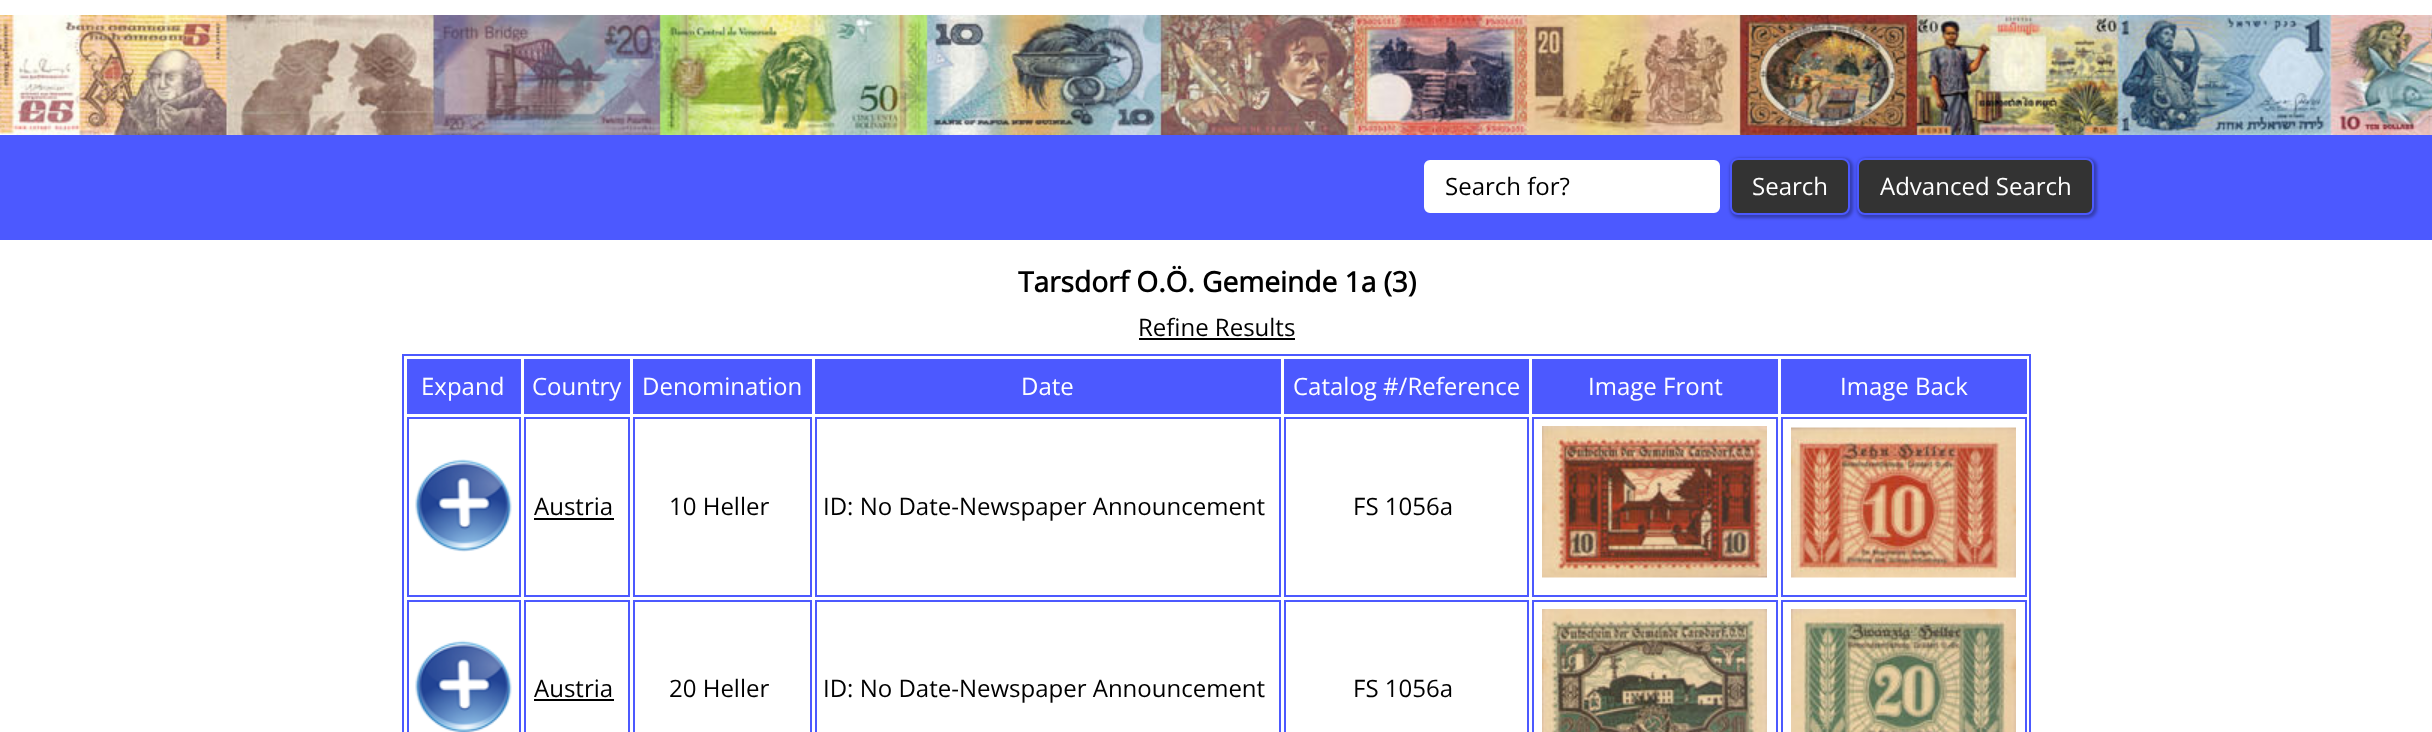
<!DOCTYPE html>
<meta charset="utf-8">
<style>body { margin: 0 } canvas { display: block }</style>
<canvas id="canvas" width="2432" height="732"></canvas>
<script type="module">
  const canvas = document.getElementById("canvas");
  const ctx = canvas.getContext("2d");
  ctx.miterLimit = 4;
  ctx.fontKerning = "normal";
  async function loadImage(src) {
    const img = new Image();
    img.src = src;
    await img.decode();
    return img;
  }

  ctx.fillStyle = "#ffffff";
  ctx.fillRect(0, 0, 2432, 732);
  ctx.drawImage(await loadImage("img1.png"), 0, 15, 2432, 120);
  ctx.fillStyle = "#4c59ff";
  ctx.fillRect(0, 135, 2432, 105);
  ctx.fillStyle = "#ffffff";
  ctx.beginPath();
  ctx.roundRect(1423, 159, 298, 55, 7);
  ctx.fill();
  ctx.strokeStyle = "#4c59ff";
  ctx.lineWidth = 2;
  ctx.stroke();
  ctx.font = "24px Open Sans";
  ctx.fillStyle = "#000000";
  ctx.fillText("Search for?", 1445, 195);
  ctx.fillStyle = "rgba(0, 0, 0, 0.3)";
  ctx.filter = "blur(1.5px)";
  ctx.beginPath();
  ctx.roundRect(1730, 158, 123, 60, 9);
  ctx.fill();
  ctx.filter = "none";
  ctx.fillStyle = "#333333";
  ctx.beginPath();
  ctx.roundRect(1731, 159, 118, 55, 7);
  ctx.fill();
  ctx.stroke();
  ctx.fillStyle = "#ffffff";
  ctx.fillText("Search", 1752, 195);
  ctx.fillStyle = "rgba(0, 0, 0, 0.3)";
  ctx.filter = "blur(1.5px)";
  ctx.beginPath();
  ctx.roundRect(1857, 158, 240, 60, 9);
  ctx.fill();
  ctx.filter = "none";
  ctx.fillStyle = "#333333";
  ctx.beginPath();
  ctx.roundRect(1858, 159, 235, 55, 7);
  ctx.fill();
  ctx.stroke();
  ctx.fillStyle = "#ffffff";
  ctx.fillText("Advanced Search", 1880, 195);
  ctx.font = "bold 28.1px Open Sans";
  ctx.fillStyle = "#000000";
  ctx.fillText("Tarsdorf O.Ö. Gemeinde 1a (3)", 1018, 292);
  ctx.font = "24px Open Sans";
  ctx.fillText("Refine Results", 1138, 336);
  ctx.fillRect(1139, 338, 156, 2);
  ctx.strokeRect(403, 355, 1627, 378);
  ctx.fillStyle = "#4c59ff";
  ctx.fillRect(407, 359, 114, 55);
  ctx.fillStyle = "#ffffff";
  ctx.fillText("Expand", 421, 395);
  ctx.fillStyle = "#4c59ff";
  ctx.fillRect(524, 359, 106, 55);
  ctx.fillStyle = "#ffffff";
  ctx.fillText("Country", 532, 395);
  ctx.fillStyle = "#4c59ff";
  ctx.fillRect(633, 359, 179, 55);
  ctx.fillStyle = "#ffffff";
  ctx.fillText("Denomination", 642, 395);
  ctx.fillStyle = "#4c59ff";
  ctx.fillRect(815, 359, 466, 55);
  ctx.fillStyle = "#ffffff";
  ctx.fillText("Date", 1021, 395);
  ctx.fillStyle = "#4c59ff";
  ctx.fillRect(1284, 359, 245, 55);
  ctx.fillStyle = "#ffffff";
  ctx.fillText("Catalog #/Reference", 1293, 395);
  ctx.fillStyle = "#4c59ff";
  ctx.fillRect(1532, 359, 246, 55);
  ctx.fillStyle = "#ffffff";
  ctx.fillText("Image Front", 1588, 395);
  ctx.fillStyle = "#4c59ff";
  ctx.fillRect(1781, 359, 246, 55);
  ctx.fillStyle = "#ffffff";
  ctx.fillText("Image Back", 1840, 395);
  ctx.strokeRect(408, 418, 112, 178);
  ctx.drawImage(await loadImage("img2.png"), 415, 459, 97, 93);
  ctx.strokeRect(525, 418, 104, 178);
  ctx.fillStyle = "#000000";
  ctx.fillText("Austria", 534, 515);
  ctx.fillRect(534, 518, 80, 2);
  ctx.strokeRect(634, 418, 177, 178);
  ctx.fillText("10 Heller", 669, 515);
  ctx.strokeRect(816, 418, 464, 178);
  ctx.fillText("ID: No Date-Newspaper Announcement", 823, 515);
  ctx.strokeRect(1285, 418, 243, 178);
  ctx.fillText("FS 1056a", 1353, 515);
  ctx.strokeRect(1533, 418, 244, 178);
  ctx.drawImage(await loadImage("img3.png"), 1542, 426, 225, 152);
  ctx.strokeRect(1782, 418, 244, 178);
  ctx.drawImage(await loadImage("img4.png"), 1791, 427, 225, 151);
  ctx.strokeRect(408, 601, 112, 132);
  ctx.drawImage(await loadImage("img5.png"), 415, 640, 97, 92);
  ctx.strokeRect(525, 601, 104, 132);
  ctx.fillText("Austria", 534, 697);
  ctx.fillRect(534, 699, 80, 2);
  ctx.strokeRect(634, 601, 177, 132);
  ctx.fillText("20 Heller", 669, 697);
  ctx.strokeRect(816, 601, 464, 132);
  ctx.fillText("ID: No Date-Newspaper Announcement", 823, 697);
  ctx.strokeRect(1285, 601, 243, 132);
  ctx.fillText("FS 1056a", 1353, 697);
  ctx.strokeRect(1533, 601, 244, 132);
  ctx.drawImage(await loadImage("img6.png"), 1542, 609, 225, 123);
  ctx.strokeRect(1782, 601, 244, 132);
  ctx.drawImage(await loadImage("img7.png"), 1791, 609, 225, 123);
</script>
